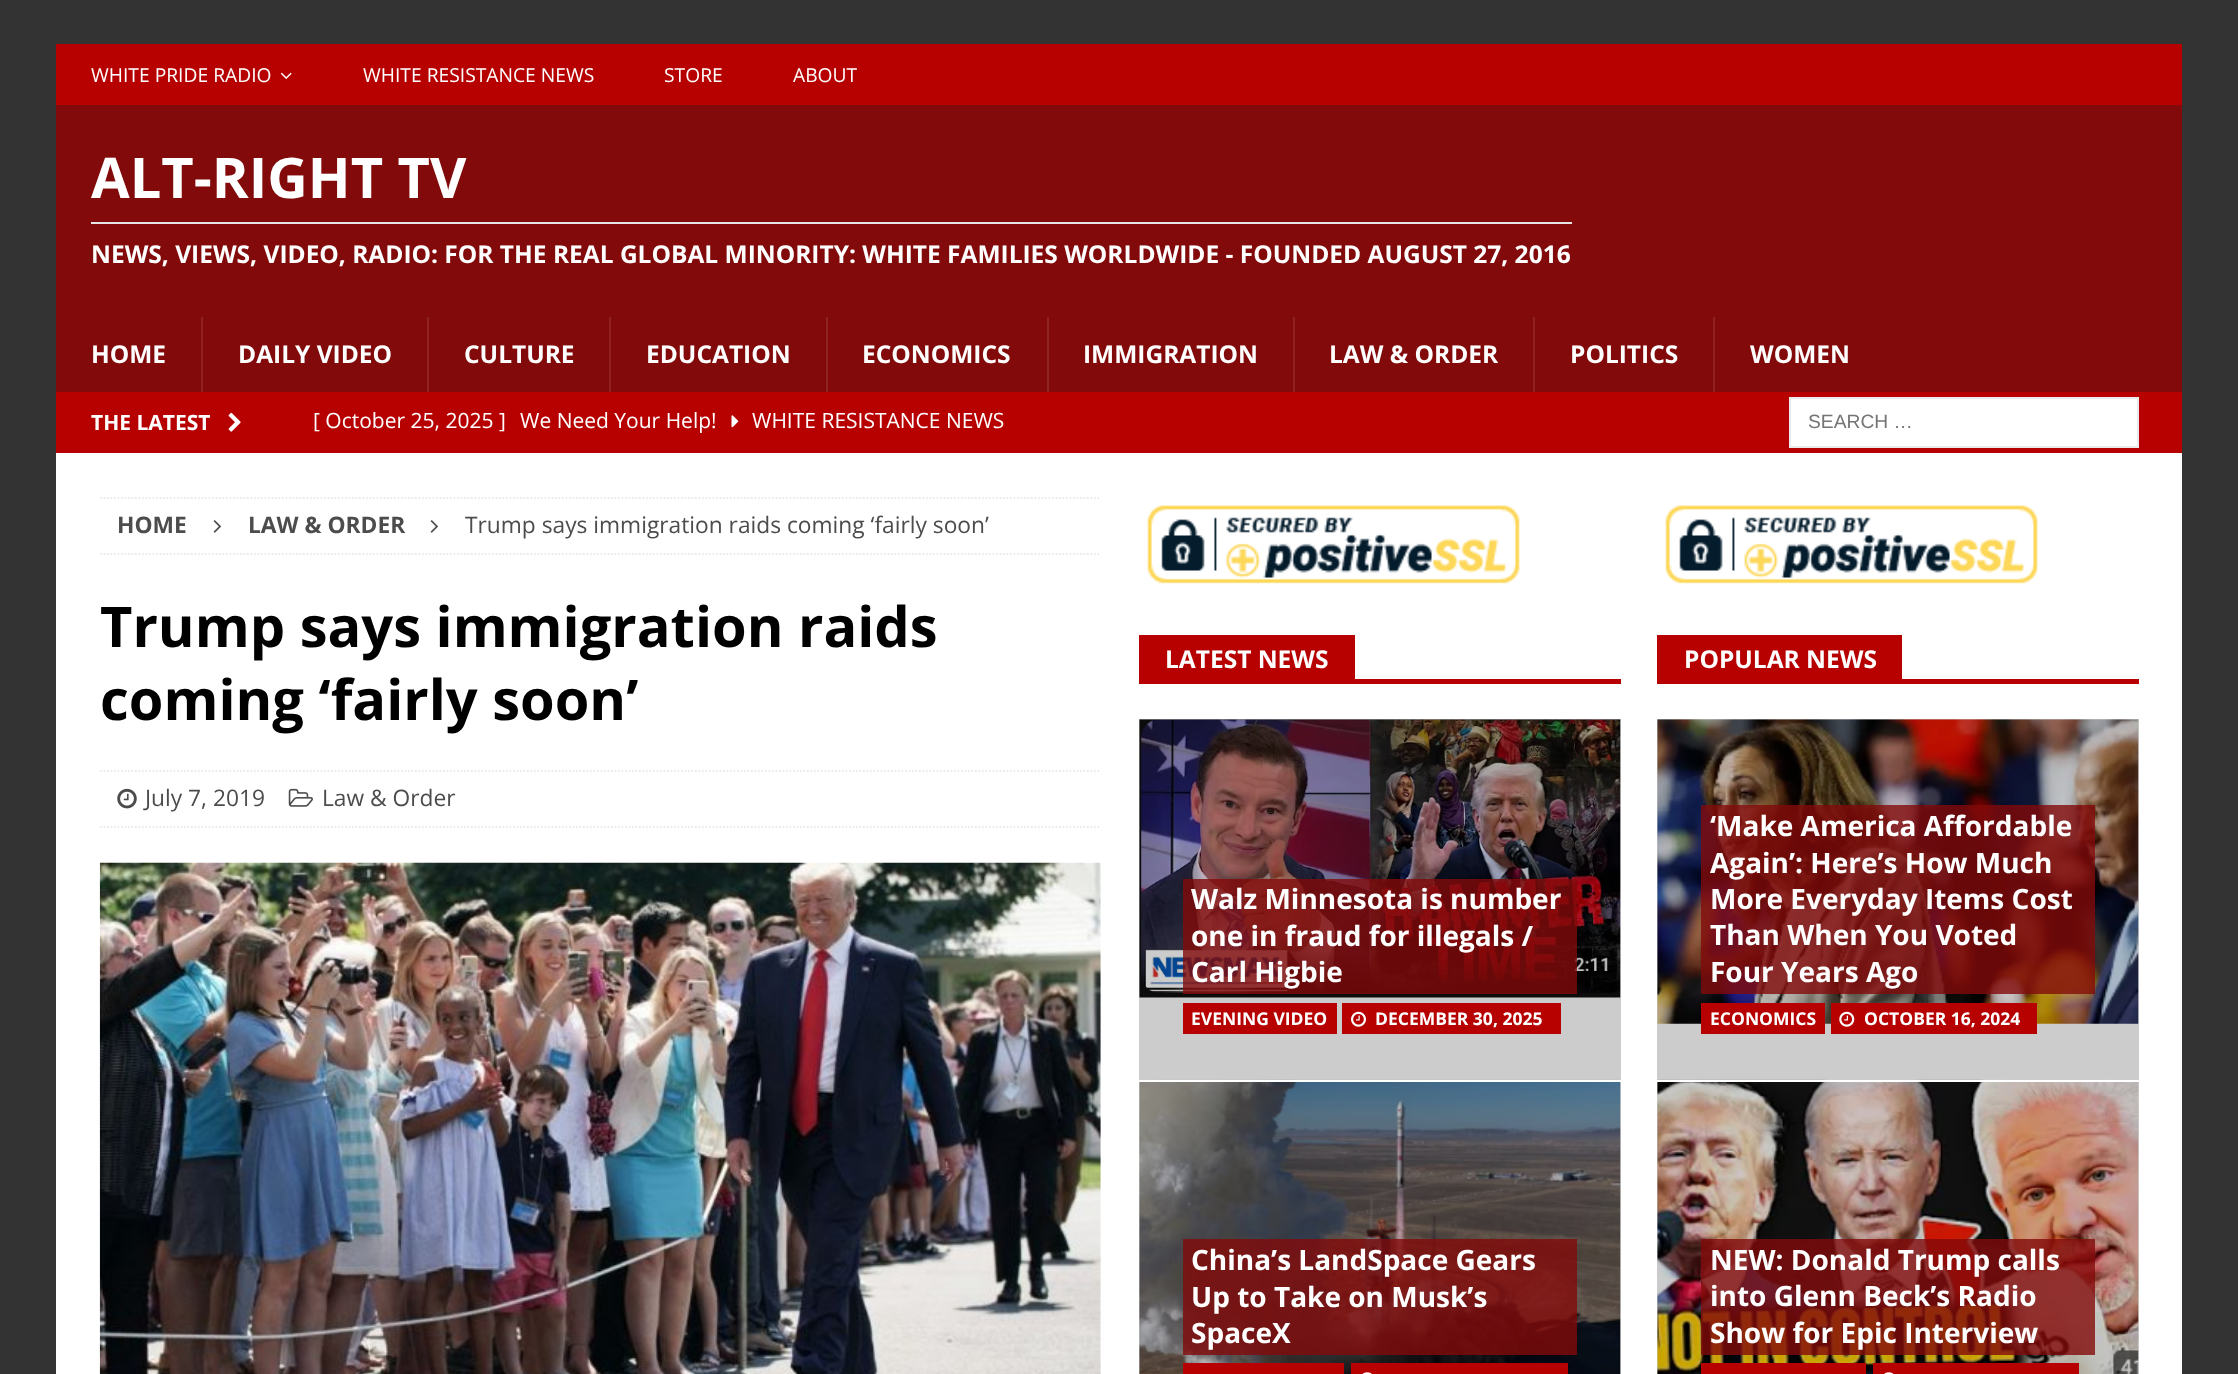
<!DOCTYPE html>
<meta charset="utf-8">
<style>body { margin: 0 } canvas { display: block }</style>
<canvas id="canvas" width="2238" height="1374"></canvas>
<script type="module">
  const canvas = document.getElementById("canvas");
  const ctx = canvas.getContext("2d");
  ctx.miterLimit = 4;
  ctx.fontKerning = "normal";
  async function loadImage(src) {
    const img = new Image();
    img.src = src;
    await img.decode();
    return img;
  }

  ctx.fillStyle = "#333333";
  ctx.fillRect(0, 0, 2238, 1374);
  ctx.fillStyle = "#b70000";
  ctx.fillRect(56, 44, 2126, 61);
  ctx.font = "19.25px Open Sans";
  ctx.fillStyle = "#ffffff";
  ctx.fillText("WHITE PRIDE RADIO", 91, 82);
  ctx.drawImage(await loadImage("img1.png"), 280, 72, 12, 7);
  ctx.fillText("WHITE RESISTANCE NEWS", 363, 82);
  ctx.fillText("STORE", 664, 82);
  ctx.fillText("ABOUT", 793, 82);
  ctx.fillStyle = "#820a0a";
  ctx.fillRect(56, 105, 2126, 287);
  ctx.font = "bold 56px Open Sans";
  ctx.fillStyle = "#ffffff";
  ctx.fillText("ALT-RIGHT TV", 91, 198);
  ctx.fillStyle = "#e5e5e5";
  ctx.fillRect(91, 222, 1481, 2);
  ctx.font = "bold 24.5px Open Sans";
  ctx.fillStyle = "#ffffff";
  ctx.fillText("NEWS, VIEWS, VIDEO, RADIO: FOR THE REAL GLOBAL MINORITY: WHITE FAMILIES WORLDWIDE - FOUNDED AUGUST 27, 2016", 91, 263);
  ctx.fillText("HOME", 91, 363);
  ctx.fillStyle = "#8f2323";
  ctx.fillRect(201, 317, 2, 75);
  ctx.fillStyle = "#ffffff";
  ctx.fillText("DAILY VIDEO", 238, 363);
  ctx.fillStyle = "#8f2323";
  ctx.fillRect(427, 317, 2, 75);
  ctx.fillStyle = "#ffffff";
  ctx.fillText("CULTURE", 464, 363);
  ctx.fillStyle = "#8f2323";
  ctx.fillRect(609, 317, 2, 75);
  ctx.fillStyle = "#ffffff";
  ctx.fillText("EDUCATION", 646, 363);
  ctx.fillStyle = "#8f2323";
  ctx.fillRect(826, 317, 2, 75);
  ctx.fillStyle = "#ffffff";
  ctx.fillText("ECONOMICS", 862, 363);
  ctx.fillStyle = "#8f2323";
  ctx.fillRect(1047, 317, 2, 75);
  ctx.fillStyle = "#ffffff";
  ctx.fillText("IMMIGRATION", 1083, 363);
  ctx.fillStyle = "#8f2323";
  ctx.fillRect(1293, 317, 2, 75);
  ctx.fillStyle = "#ffffff";
  ctx.fillText("LAW & ORDER", 1329, 363);
  ctx.fillStyle = "#8f2323";
  ctx.fillRect(1533, 317, 2, 75);
  ctx.fillStyle = "#ffffff";
  ctx.fillText("POLITICS", 1570, 363);
  ctx.fillStyle = "#8f2323";
  ctx.fillRect(1713, 317, 2, 75);
  ctx.fillStyle = "#ffffff";
  ctx.fillText("WOMEN", 1750, 363);
  ctx.fillStyle = "#b70000";
  ctx.fillRect(56, 392, 2126, 61);
  ctx.font = "bold 21px Open Sans";
  ctx.fillStyle = "#ffffff";
  ctx.fillText("THE LATEST", 91, 430);
  ctx.drawImage(await loadImage("img2.png"), 228, 412, 13, 20);
  ctx.font = "21px Open Sans";
  ctx.fillText("[ October 25, 2025 ]", 313, 428);
  ctx.fillText("We Need Your Help!", 520, 428);
  ctx.drawImage(await loadImage("img3.png"), 731, 415, 8, 13);
  ctx.fillText("WHITE RESISTANCE NEWS", 752, 428);
  ctx.beginPath();
  ctx.rect(1790, 398, 348, 49);
  ctx.fill();
  ctx.strokeStyle = "#ebebeb";
  ctx.lineWidth = 2;
  ctx.stroke();
  ctx.font = "19.25px Liberation Sans";
  ctx.fillStyle = "#757575";
  ctx.fillText("SEARCH …", 1808, 428);
  ctx.fillStyle = "#ffffff";
  ctx.fillRect(56, 453, 2126, 921);
  ctx.fillStyle = "#cccccc";
  ctx.fillRect(1657, 1082, 482, 292);
  ctx.fillRect(1657, 719, 482, 361);
  ctx.fillRect(1139, 1082, 482, 292);
  ctx.fillRect(1139, 719, 482, 361);
  ctx.beginPath();
  ctx.moveTo(100, 498);
  ctx.lineTo(1101, 498);
  ctx.lineWidth = 1.8;
  ctx.setLineDash([1.75, 1.75]);
  ctx.stroke();
  ctx.beginPath();
  ctx.moveTo(100, 554);
  ctx.lineTo(1101, 554);
  ctx.stroke();
  ctx.font = "bold 22.75px Open Sans";
  ctx.fillStyle = "#4c4c4c";
  ctx.fillText("HOME", 117, 533);
  ctx.drawImage(await loadImage("img4.png"), 213, 520, 8, 13);
  ctx.fillText("LAW & ORDER", 248, 533);
  ctx.drawImage(await loadImage("img4.png"), 430, 520, 8, 13);
  ctx.font = "22.75px Open Sans";
  ctx.fillText("Trump says immigration raids coming ‘fairly soon’", 465, 533);
  ctx.font = "bold 56px Open Sans";
  ctx.fillStyle = "#000000";
  ctx.fillText("Trump says immigration raids", 100, 647);
  ctx.fillText("coming ‘fairly soon’", 100, 720);
  ctx.beginPath();
  ctx.moveTo(100, 771);
  ctx.lineTo(1101, 771);
  ctx.stroke();
  ctx.beginPath();
  ctx.moveTo(100, 827);
  ctx.lineTo(1101, 827);
  ctx.stroke();
  ctx.drawImage(await loadImage("img5.png"), 117, 788, 20, 21);
  ctx.font = "22.75px Open Sans";
  ctx.fillStyle = "#4c4c4c";
  ctx.fillText("July 7, 2019", 145, 806);
  ctx.drawImage(await loadImage("img6.png"), 288, 788, 25, 19);
  ctx.fillText("Law & Order", 322, 806);
  ctx.drawImage(await loadImage("img7.png"), 99, 862, 1002, 512);
  ctx.drawImage(await loadImage("img8.png"), 1146, 505, 374, 79);
  ctx.fillStyle = "#b70000";
  ctx.fillRect(1139, 679, 482, 5);
  ctx.fillRect(1139, 635, 216, 44);
  ctx.font = "bold 24.5px Open Sans";
  ctx.fillStyle = "#ffffff";
  ctx.fillText("LATEST NEWS", 1165, 668);
  ctx.drawImage(await loadImage("img9.png"), 1139, 719, 482, 279);
  ctx.fillStyle = "rgba(130, 10, 10, 0.8)";
  ctx.fillRect(1183, 879, 394, 115);
  ctx.font = "bold 28px Open Sans";
  ctx.fillStyle = "#ffffff";
  ctx.fillText("Walz Minnesota is number", 1191, 909);
  ctx.fillText("one in fraud for illegals /", 1191, 946);
  ctx.fillText("Carl Higbie", 1191, 982);
  ctx.fillStyle = "#b70000";
  ctx.fillRect(1183, 1003, 154, 31);
  ctx.font = "bold 17.5px Open Sans";
  ctx.fillStyle = "#ffffff";
  ctx.fillText("EVENING VIDEO", 1191, 1025);
  ctx.fillStyle = "#b70000";
  ctx.fillRect(1342, 1003, 219, 31);
  ctx.drawImage(await loadImage("img10.png"), 1351, 1011, 15, 16);
  ctx.fillStyle = "#ffffff";
  ctx.fillText("DECEMBER 30, 2025", 1375, 1025);
  ctx.drawImage(await loadImage("img11.png"), 1139, 1079, 482, 295);
  ctx.fillRect(1139, 1080, 482, 2);
  ctx.fillStyle = "rgba(130, 10, 10, 0.8)";
  ctx.fillRect(1183, 1239, 394, 116);
  ctx.font = "bold 28px Open Sans";
  ctx.fillStyle = "#ffffff";
  ctx.fillText("China’s LandSpace Gears", 1191, 1270);
  ctx.fillText("Up to Take on Musk’s", 1191, 1307);
  ctx.fillText("SpaceX", 1191, 1343);
  ctx.fillStyle = "#b70000";
  ctx.fillRect(1183, 1363, 161, 11);
  ctx.fillRect(1351, 1363, 217, 11);
  ctx.drawImage(await loadImage("img12.png"), 1362, 1372, 10, 2);
  ctx.drawImage(await loadImage("img13.png"), 1664, 505, 374, 79);
  ctx.fillRect(1657, 679, 482, 5);
  ctx.fillRect(1657, 635, 245, 44);
  ctx.font = "bold 24.5px Open Sans";
  ctx.fillStyle = "#ffffff";
  ctx.fillText("POPULAR NEWS", 1684, 668);
  ctx.drawImage(await loadImage("img14.png"), 1657, 719, 482, 305);
  ctx.fillStyle = "rgba(130, 10, 10, 0.8)";
  ctx.fillRect(1701, 805, 394, 189);
  ctx.font = "bold 28px Open Sans";
  ctx.fillStyle = "#ffffff";
  ctx.fillText("‘Make America Affordable", 1710, 836);
  ctx.fillText("Again’: Here’s How Much", 1710, 873);
  ctx.fillText("More Everyday Items Cost", 1710, 909);
  ctx.fillText("Than When You Voted", 1710, 945);
  ctx.fillText("Four Years Ago", 1710, 982);
  ctx.fillStyle = "#b70000";
  ctx.fillRect(1701, 1003, 124, 31);
  ctx.font = "bold 17.5px Open Sans";
  ctx.fillStyle = "#ffffff";
  ctx.fillText("ECONOMICS", 1710, 1025);
  ctx.fillStyle = "#b70000";
  ctx.fillRect(1831, 1003, 206, 31);
  ctx.drawImage(await loadImage("img15.png"), 1839, 1011, 16, 16);
  ctx.fillStyle = "#ffffff";
  ctx.fillText("OCTOBER 16, 2024", 1864, 1025);
  ctx.drawImage(await loadImage("img16.png"), 1657, 1079, 482, 295);
  ctx.fillRect(1657, 1080, 482, 2);
  ctx.fillStyle = "rgba(130, 10, 10, 0.8)";
  ctx.fillRect(1701, 1239, 394, 116);
  ctx.font = "bold 28px Open Sans";
  ctx.fillStyle = "#ffffff";
  ctx.fillText("NEW: Donald Trump calls", 1710, 1270);
  ctx.fillText("into Glenn Beck’s Radio", 1710, 1306);
  ctx.fillText("Show for Epic Interview", 1710, 1343);
  ctx.fillStyle = "#b70000";
  ctx.fillRect(1701, 1363, 165, 11);
  ctx.fillRect(1873, 1363, 206, 11);
  ctx.drawImage(await loadImage("img17.png"), 1884, 1372, 10, 2);
</script>
